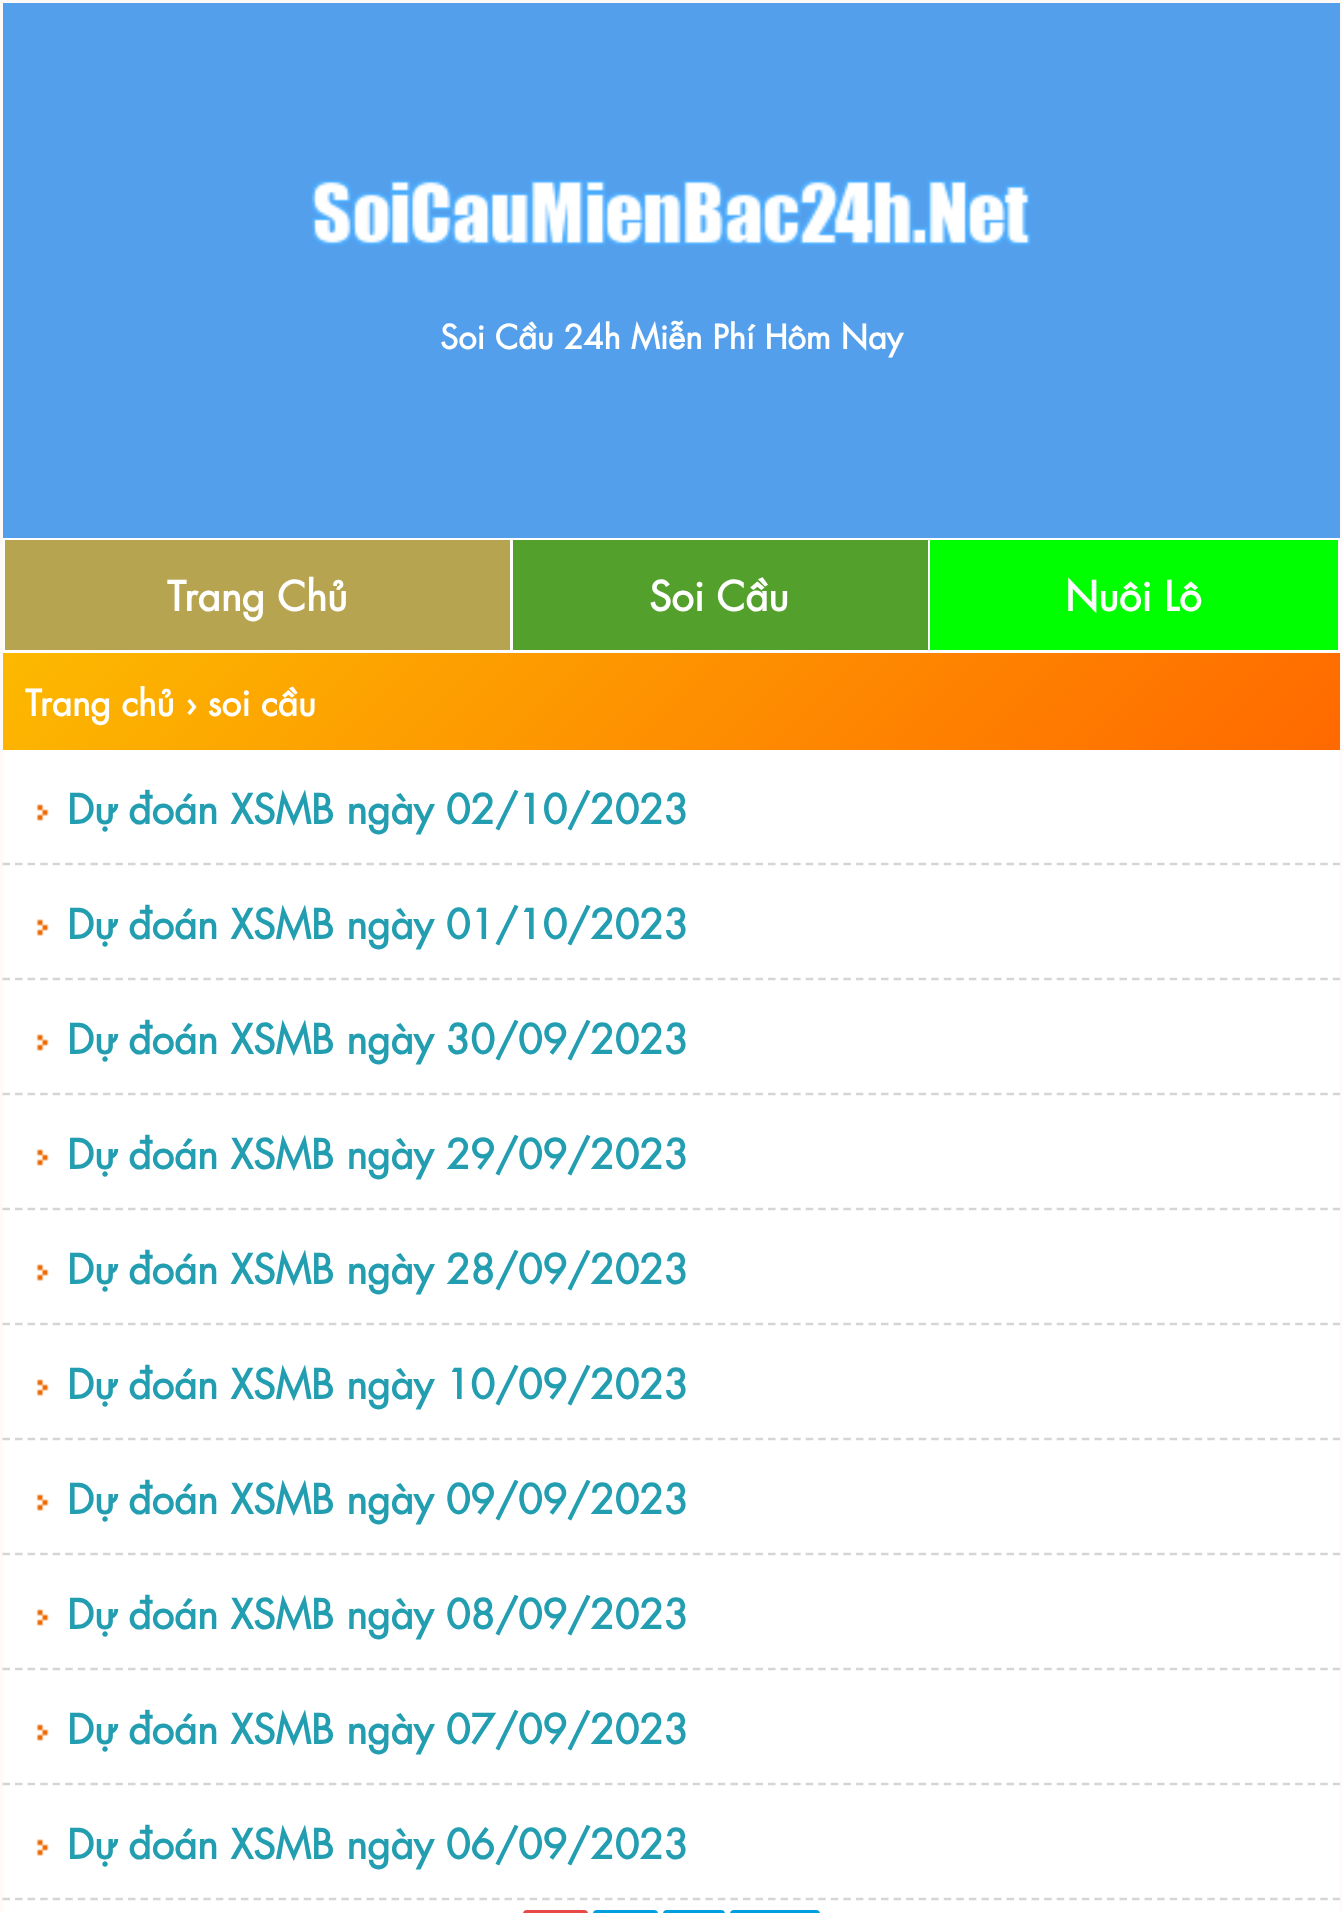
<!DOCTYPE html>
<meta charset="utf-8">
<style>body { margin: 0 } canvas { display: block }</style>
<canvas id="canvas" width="1342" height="1913"></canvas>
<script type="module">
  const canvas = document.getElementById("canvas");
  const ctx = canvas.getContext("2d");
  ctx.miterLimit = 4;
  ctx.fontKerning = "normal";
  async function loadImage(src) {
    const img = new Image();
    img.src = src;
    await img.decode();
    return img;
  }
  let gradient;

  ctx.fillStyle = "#ffffff";
  ctx.fillRect(0, 0, 1342, 1913);
  ctx.strokeStyle = "#fffaf7";
  ctx.lineWidth = 3;
  ctx.strokeRect(1.5, 1.5, 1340, 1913);
  ctx.fillStyle = "#549feb";
  ctx.fillRect(3, 3, 1337, 535);
  ctx.drawImage(await loadImage("img1.png"), 311, 179, 720, 67);
  ctx.font = "bold 32.5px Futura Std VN";
  ctx.fillStyle = "#ffffff";
  ctx.fillText("Soi Cầu 24h Miễn Phí Hôm Nay", 440, 349);
  ctx.fillStyle = "#b6a450";
  ctx.fillRect(5, 540, 505, 110);
  ctx.font = "bold 40px Futura Std VN";
  ctx.fillStyle = "#ffffff";
  ctx.fillText("Trang Chủ", 167, 611);
  ctx.fillStyle = "#53a02c";
  ctx.fillRect(513, 540, 415, 110);
  ctx.fillStyle = "#ffffff";
  ctx.fillText("Soi Cầu", 649, 611);
  ctx.fillStyle = "#00ff00";
  ctx.fillRect(930, 540, 408, 110);
  ctx.fillStyle = "#ffffff";
  ctx.fillText("Nuôi Lô", 1065, 611);
  gradient = ctx.createLinearGradient(312, 343, 1030, 1060);
  gradient.addColorStop(0, "#fcb900");
  gradient.addColorStop(1, "#ff6900");
  ctx.fillStyle = gradient;
  ctx.fillRect(3, 653, 1337, 97);
  ctx.font = "bold 35px Futura Std VN";
  ctx.fillStyle = "#ffffff";
  ctx.fillText("Trang chủ › soi cầu", 25, 716);
  ctx.beginPath();
  ctx.moveTo(2.5, 864);
  ctx.lineTo(1340, 864);
  ctx.strokeStyle = "#d5d5d5";
  ctx.lineWidth = 2.5;
  ctx.setLineDash([7.5, 5.05]);
  ctx.stroke();
  ctx.drawImage(await loadImage("img2.png"), 36, 804, 13, 17);
  ctx.font = "bold 40px Futura Std VN";
  ctx.fillStyle = "#239eb1";
  ctx.fillText("Dự đoán XSMB ngày 02/10/2023", 67, 824);
  ctx.beginPath();
  ctx.moveTo(2.5, 979);
  ctx.lineTo(1340, 979);
  ctx.stroke();
  ctx.drawImage(await loadImage("img2.png"), 36, 919, 13, 17);
  ctx.fillText("Dự đoán XSMB ngày 01/10/2023", 67, 939);
  ctx.beginPath();
  ctx.moveTo(2.5, 1094);
  ctx.lineTo(1340, 1094);
  ctx.stroke();
  ctx.drawImage(await loadImage("img2.png"), 36, 1034, 13, 17);
  ctx.fillText("Dự đoán XSMB ngày 30/09/2023", 67, 1054);
  ctx.beginPath();
  ctx.moveTo(2.5, 1209);
  ctx.lineTo(1340, 1209);
  ctx.stroke();
  ctx.drawImage(await loadImage("img2.png"), 36, 1149, 13, 17);
  ctx.fillText("Dự đoán XSMB ngày 29/09/2023", 67, 1169);
  ctx.beginPath();
  ctx.moveTo(2.5, 1324);
  ctx.lineTo(1340, 1324);
  ctx.stroke();
  ctx.drawImage(await loadImage("img2.png"), 36, 1264, 13, 17);
  ctx.fillText("Dự đoán XSMB ngày 28/09/2023", 67, 1284);
  ctx.beginPath();
  ctx.moveTo(2.5, 1439);
  ctx.lineTo(1340, 1439);
  ctx.stroke();
  ctx.drawImage(await loadImage("img2.png"), 36, 1379, 13, 17);
  ctx.fillText("Dự đoán XSMB ngày 10/09/2023", 67, 1399);
  ctx.beginPath();
  ctx.moveTo(2.5, 1554);
  ctx.lineTo(1340, 1554);
  ctx.stroke();
  ctx.drawImage(await loadImage("img2.png"), 36, 1494, 13, 17);
  ctx.fillText("Dự đoán XSMB ngày 09/09/2023", 67, 1514);
  ctx.beginPath();
  ctx.moveTo(2.5, 1669);
  ctx.lineTo(1340, 1669);
  ctx.stroke();
  ctx.drawImage(await loadImage("img2.png"), 36, 1609, 13, 17);
  ctx.fillText("Dự đoán XSMB ngày 08/09/2023", 67, 1629);
  ctx.beginPath();
  ctx.moveTo(2.5, 1784);
  ctx.lineTo(1340, 1784);
  ctx.stroke();
  ctx.drawImage(await loadImage("img2.png"), 36, 1724, 13, 17);
  ctx.fillText("Dự đoán XSMB ngày 07/09/2023", 67, 1744);
  ctx.beginPath();
  ctx.moveTo(2.5, 1899);
  ctx.lineTo(1340, 1899);
  ctx.stroke();
  ctx.drawImage(await loadImage("img2.png"), 36, 1839, 13, 17);
  ctx.fillText("Dự đoán XSMB ngày 06/09/2023", 67, 1859);
  ctx.fillStyle = "#e74946";
  ctx.beginPath();
  ctx.roundRect(523, 1910, 65, 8, 5);
  ctx.fill();
  ctx.fillStyle = "#009fe0";
  ctx.beginPath();
  ctx.roundRect(593, 1910, 65, 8, 5);
  ctx.fill();
  ctx.beginPath();
  ctx.roundRect(663, 1910, 62, 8, 5);
  ctx.fill();
  ctx.beginPath();
  ctx.roundRect(730, 1910, 90, 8, 5);
  ctx.fill();
</script>
